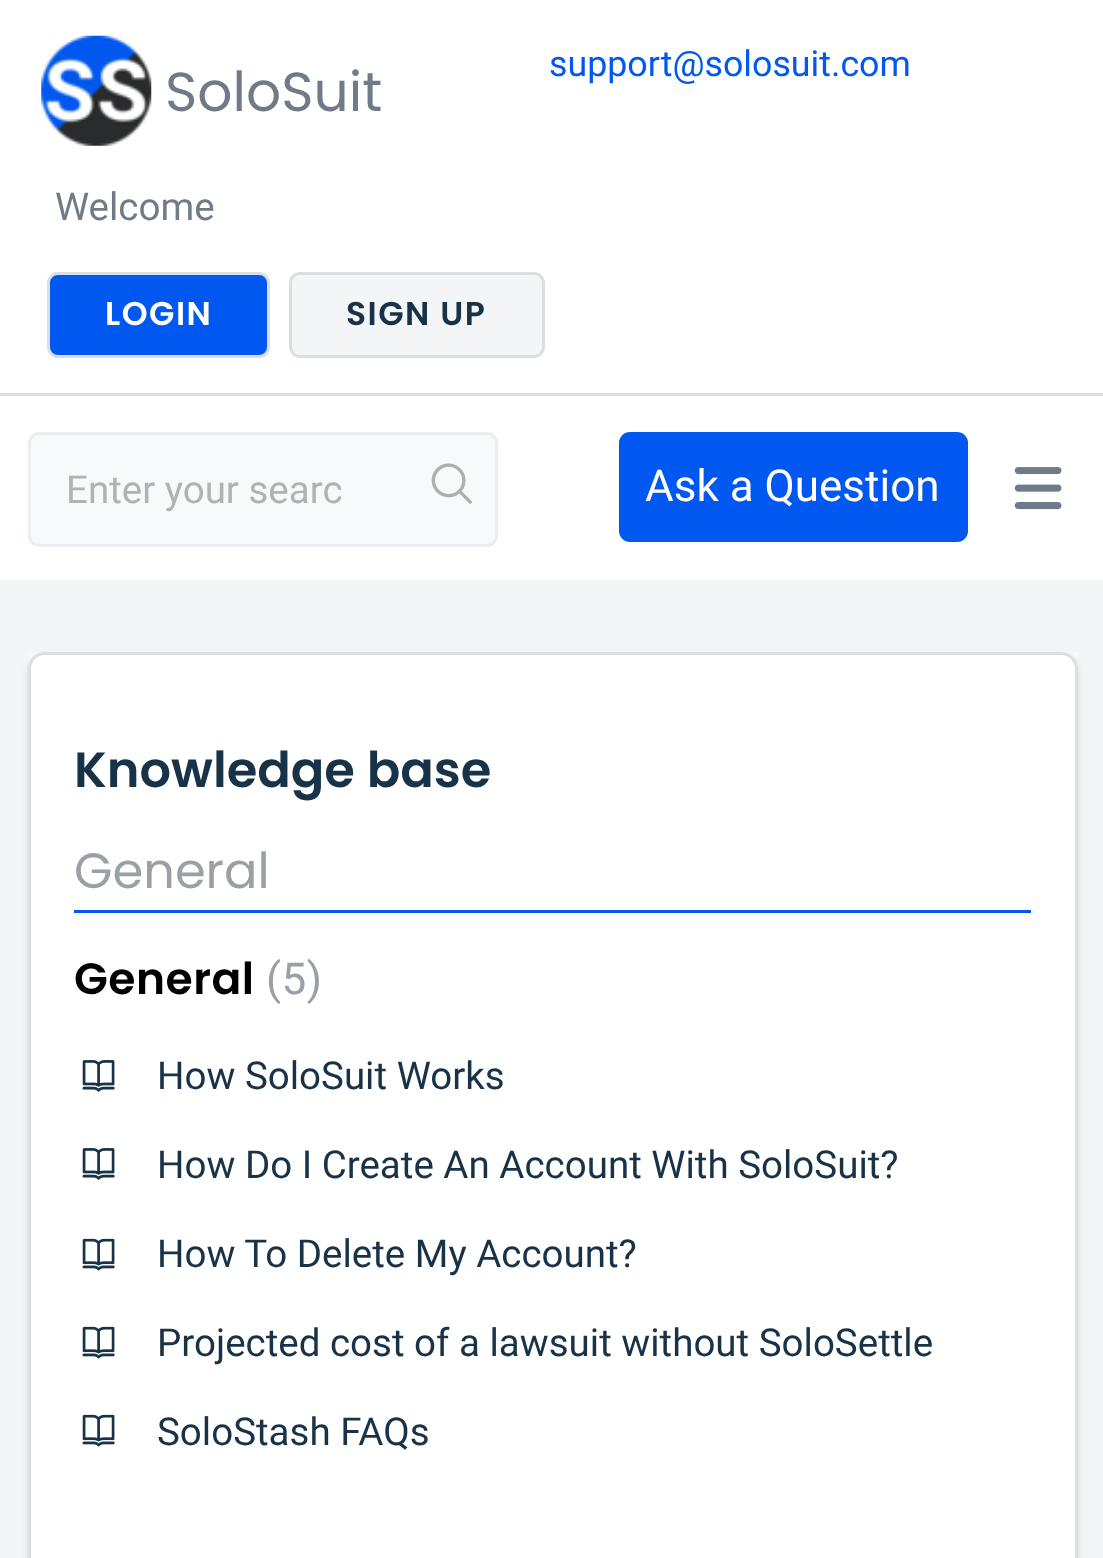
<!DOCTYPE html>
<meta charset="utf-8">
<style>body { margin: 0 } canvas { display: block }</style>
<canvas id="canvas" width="1103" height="1558"></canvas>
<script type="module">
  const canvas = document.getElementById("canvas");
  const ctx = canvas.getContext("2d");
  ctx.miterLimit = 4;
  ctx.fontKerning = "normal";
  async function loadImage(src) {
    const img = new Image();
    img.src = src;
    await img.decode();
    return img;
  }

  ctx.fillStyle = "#f3f5f7";
  ctx.fillRect(0, 0, 1103, 1558);
  ctx.fillStyle = "#ffffff";
  ctx.fillRect(0, 0, 1103, 393);
  ctx.fillStyle = "#dadfe3";
  ctx.fillRect(0, 393, 1103, 3);
  ctx.drawImage(await loadImage("img1.png"), 41, 35, 111, 111);
  ctx.font = "55px Poppins";
  ctx.fillStyle = "#6f7c87";
  ctx.fillText("SoloSuit", 165, 111);
  ctx.font = "35.75px Roboto";
  ctx.fillStyle = "#0058f0";
  ctx.fillText("support@solosuit.com", 549, 76);
  ctx.font = "38.5px Roboto";
  ctx.fillStyle = "#6f7c87";
  ctx.fillText("Welcome", 55, 220);
  ctx.fillStyle = "#0058f0";
  ctx.beginPath();
  ctx.roundRect(48.5, 273.5, 220, 83, 9.5);
  ctx.fill();
  ctx.strokeStyle = "#dadfe3";
  ctx.lineWidth = 3;
  ctx.stroke();
  ctx.letterSpacing = "1.5px";
  ctx.font = "600 33px Poppins";
  ctx.fillStyle = "#ffffff";
  ctx.fillText("LOGIN", 105, 325);
  ctx.fillStyle = "#f3f5f7";
  ctx.beginPath();
  ctx.roundRect(290.5, 273.5, 253, 83, 9.5);
  ctx.fill();
  ctx.stroke();
  ctx.fillStyle = "#183247";
  ctx.fillText("SIGN UP", 346, 325);
  ctx.fillStyle = "#ffffff";
  ctx.fillRect(0, 396, 1103, 184);
  ctx.drawImage(await loadImage("img2.png"), 1014, 467, 48, 43);
  ctx.fillStyle = "#f8f9fa";
  ctx.beginPath();
  ctx.roundRect(29.5, 433.5, 467, 112, 9.5);
  ctx.fill();
  ctx.strokeStyle = "#ebeef0";
  ctx.stroke();
  ctx.letterSpacing = "0px";
  ctx.font = "38.5px Roboto";
  ctx.fillStyle = "#b2b2b2";
  ctx.fillText("Enter your searc", 66, 503);
  ctx.drawImage(await loadImage("img3.png"), 431, 463, 41, 41);
  ctx.fillStyle = "#0058f0";
  ctx.beginPath();
  ctx.roundRect(619, 432, 349, 110, 11);
  ctx.fill();
  ctx.font = "44px Roboto";
  ctx.fillStyle = "#ffffff";
  ctx.fillText("Ask a Question", 645, 501);
  ctx.fillStyle = "#f8f9fa";
  ctx.fillRect(28, 652, 1050, 17);
  ctx.fillStyle = "rgba(63, 63, 68, 0.15)";
  ctx.filter = "blur(3px)";
  ctx.beginPath();
  ctx.roundRect(28, 655, 1050, 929, 17);
  ctx.fill();
  ctx.filter = "none";
  ctx.fillStyle = "#ffffff";
  ctx.beginPath();
  ctx.roundRect(29.5, 653.5, 1047, 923, 15.5);
  ctx.fill();
  ctx.strokeStyle = "#dadfe3";
  ctx.stroke();
  ctx.font = "600 49.5px Poppins";
  ctx.fillStyle = "#183247";
  ctx.fillText("Knowledge base", 74, 787);
  ctx.fillStyle = "#0058f0";
  ctx.fillRect(74, 910, 957, 3);
  ctx.font = "49.5px Poppins";
  ctx.fillStyle = "#9aa1a6";
  ctx.fillText("General", 74, 888);
  ctx.letterSpacing = "0.5px";
  ctx.font = "600 44px Poppins";
  ctx.fillStyle = "#000000";
  ctx.fillText("General", 74, 994);
  ctx.font = "44px Roboto";
  ctx.fillStyle = "#9aa1a6";
  ctx.fillText("(5)", 266, 994);
  ctx.drawImage(await loadImage("img4.png"), 82, 1060, 33, 32);
  ctx.letterSpacing = "0px";
  ctx.font = "38.5px Roboto";
  ctx.fillStyle = "#183247";
  ctx.fillText("How SoloSuit Works", 157, 1089);
  ctx.drawImage(await loadImage("img4.png"), 82, 1148, 33, 32);
  ctx.fillText("How Do I Create An Account With SoloSuit?", 157, 1178);
  ctx.drawImage(await loadImage("img5.png"), 82, 1238, 33, 33);
  ctx.fillText("How To Delete My Account?", 157, 1267);
  ctx.drawImage(await loadImage("img5.png"), 82, 1326, 33, 33);
  ctx.fillText("Projected cost of a lawsuit without SoloSettle", 157, 1356);
  ctx.drawImage(await loadImage("img5.png"), 82, 1414, 33, 33);
  ctx.fillText("SoloStash FAQs", 157, 1445);
</script>
